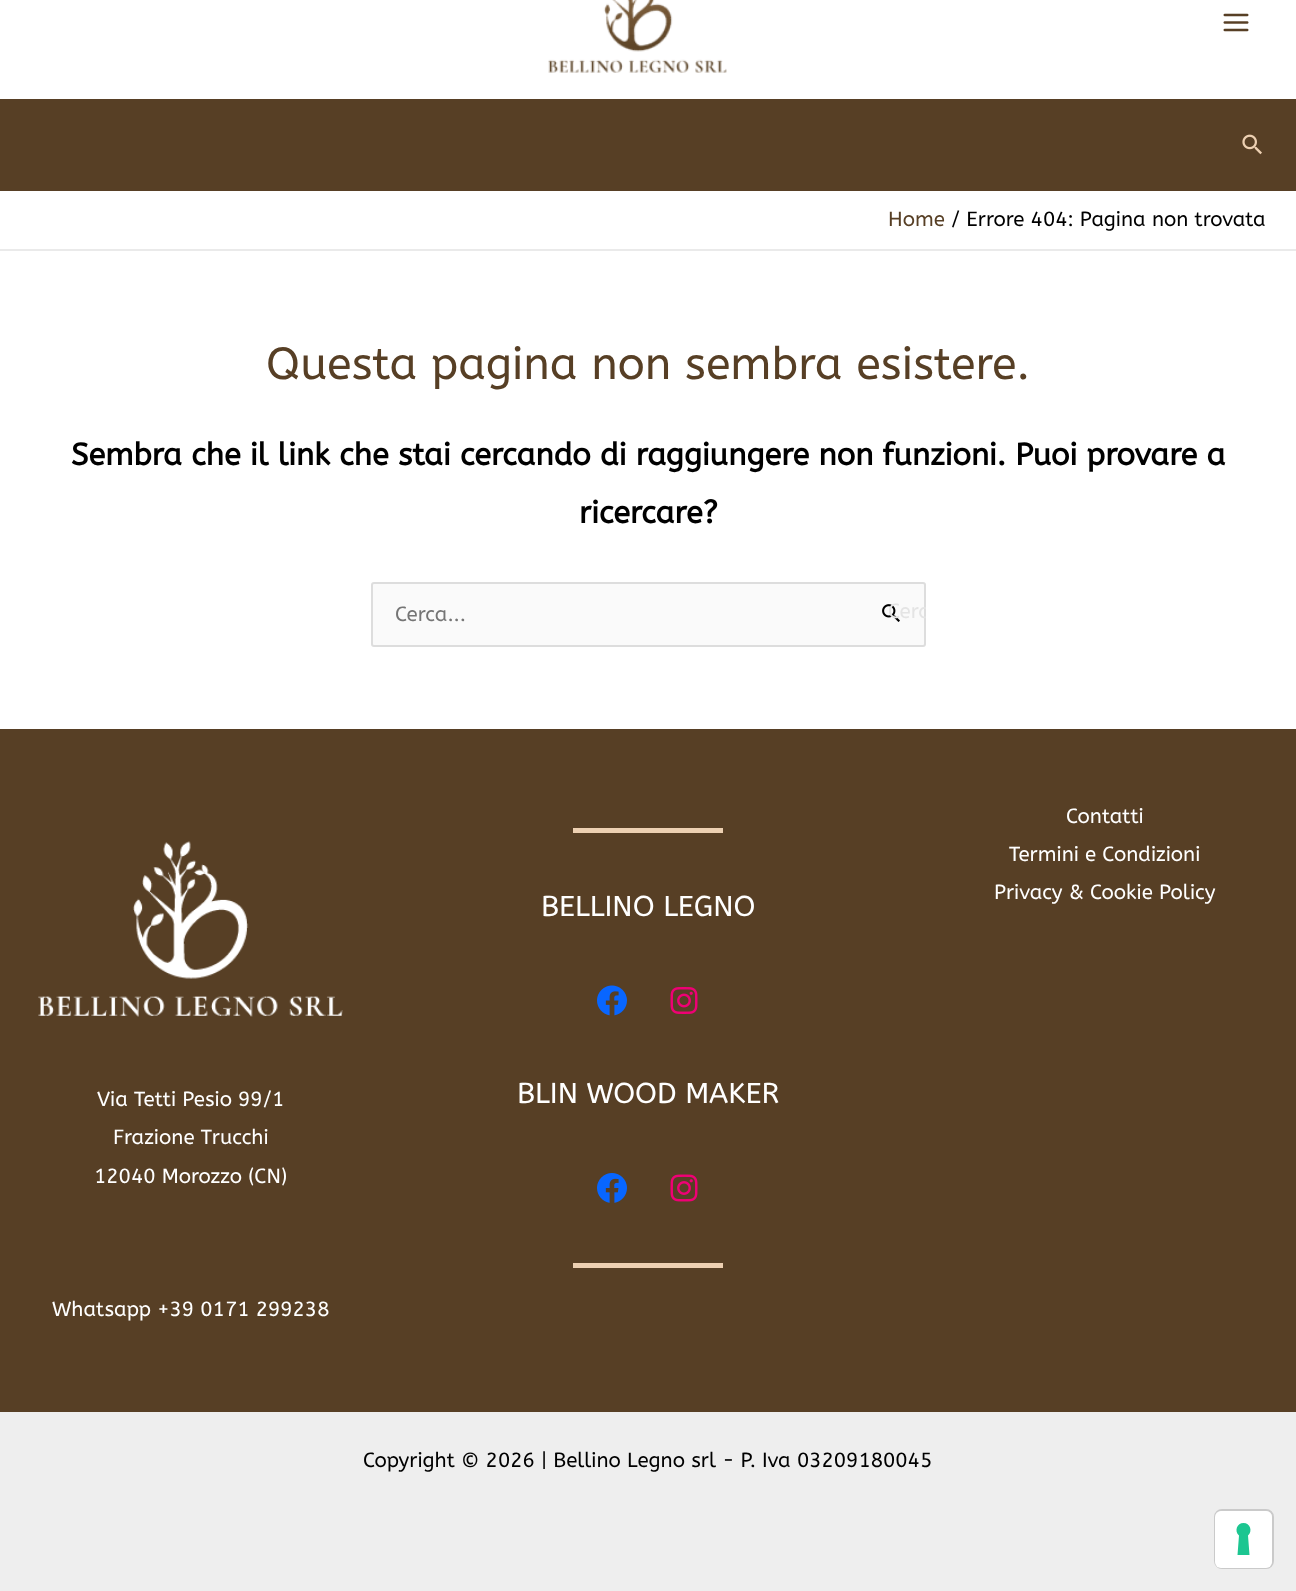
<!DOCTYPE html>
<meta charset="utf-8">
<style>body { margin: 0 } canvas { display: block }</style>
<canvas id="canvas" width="1296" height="1591"></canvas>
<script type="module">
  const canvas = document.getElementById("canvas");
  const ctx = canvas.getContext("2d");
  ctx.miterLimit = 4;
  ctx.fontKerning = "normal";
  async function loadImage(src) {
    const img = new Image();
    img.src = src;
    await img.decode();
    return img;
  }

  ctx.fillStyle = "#ffffff";
  ctx.fillRect(0, 0, 1296, 1591);
  ctx.drawImage(await loadImage("img1.png"), 548, 0, 179, 73);
  ctx.drawImage(await loadImage("img2.png"), 1223, 13, 26, 19);
  ctx.fillStyle = "#573f25";
  ctx.fillRect(0, 99, 1296, 92);
  ctx.drawImage(await loadImage("img3.png"), 1242, 134, 20, 21);
  ctx.fillStyle = "#eaeaea";
  ctx.fillRect(0, 249, 1296, 2);
  ctx.font = "20.5px ABeeZee";
  ctx.fillStyle = "#573f25";
  ctx.fillText("Home", 888, 226);
  ctx.fillStyle = "#000000";
  ctx.fillText("/ Errore 404: Pagina non trovata", 951, 226);
  ctx.font = "45px ABeeZee";
  ctx.fillStyle = "#573f25";
  ctx.fillText("Questa pagina non sembra esistere.", 266, 379);
  ctx.font = "bold 30.8px ABeeZee";
  ctx.fillStyle = "#000000";
  ctx.fillText("Sembra che il link che stai cercando di raggiungere non funzioni. Puoi provare a", 71, 465);
  ctx.fillText("ricercare?", 579, 523);
  ctx.fillStyle = "#fafafa";
  ctx.beginPath();
  ctx.roundRect(372, 583, 553, 63, 2);
  ctx.fill();
  ctx.strokeStyle = "#dddddd";
  ctx.lineWidth = 2;
  ctx.stroke();
  ctx.drawImage(await loadImage("img4.png"), 882, 604, 18, 18);
  ctx.save();
  ctx.beginPath();
  ctx.roundRect(858, 582, 68, 60, 3);
  ctx.clip();
  ctx.font = "20.5px ABeeZee";
  ctx.fillStyle = "#e4e4e4";
  ctx.fillText("Cerc", 888, 618);
  ctx.restore();
  ctx.font = "20.5px ABeeZee";
  ctx.fillStyle = "#757575";
  ctx.fillText("Cerca...", 395, 621);
  ctx.fillStyle = "#573f25";
  ctx.fillRect(0, 729, 1296, 683);
  ctx.fillStyle = "#ffffff";
  ctx.fillText("Contatti", 1066, 823);
  ctx.fillText("Termini e Condizioni", 1009, 861);
  ctx.fillText("Privacy & Cookie Policy", 994, 899);
  ctx.fillStyle = "#edd0b2";
  ctx.fillRect(573, 828, 150, 5);
  ctx.font = "28.75px ABeeZee";
  ctx.fillStyle = "#ffffff";
  ctx.fillText("BELLINO LEGNO", 541, 916);
  ctx.drawImage(await loadImage("img5.png"), 597, 985, 30, 31);
  ctx.drawImage(await loadImage("img6.png"), 670, 987, 28, 27);
  ctx.fillText("BLIN WOOD MAKER", 517, 1103);
  ctx.drawImage(await loadImage("img7.png"), 597, 1173, 30, 30);
  ctx.drawImage(await loadImage("img8.png"), 670, 1174, 28, 28);
  ctx.fillStyle = "#edd0b2";
  ctx.fillRect(573, 1263, 150, 5);
  ctx.drawImage(await loadImage("img9.png"), 38, 841, 305, 176);
  ctx.font = "20.5px ABeeZee";
  ctx.fillStyle = "#ffffff";
  ctx.fillText("Via Tetti Pesio 99/1", 97, 1106);
  ctx.fillText("Frazione Trucchi", 113, 1144);
  ctx.fillText("12040 Morozzo (CN)", 94, 1183);
  ctx.fillText("Whatsapp +39 0171 299238", 52, 1316);
  ctx.fillStyle = "#eeeeee";
  ctx.fillRect(0, 1412, 1296, 179);
  ctx.fillStyle = "#000000";
  ctx.fillText("Copyright © 2026 | Bellino Legno srl - P. Iva 03209180045", 363, 1467);
  ctx.beginPath();
  ctx.roundRect(1215, 1510, 58, 58, 7);
  ctx.strokeStyle = "#cacaca";
  ctx.stroke();
  ctx.fillStyle = "#ffffff";
  ctx.beginPath();
  ctx.roundRect(1215, 1511, 57, 57, 6);
  ctx.fill();
  ctx.fillStyle = "#1cc691";
  ctx.beginPath();
  ctx.moveTo(1243.5, 1523);
  ctx.bezierCurveTo(1250, 1523, 1253, 1531, 1248, 1535.5);
  ctx.lineTo(1249.5, 1555);
  ctx.lineTo(1237.5, 1555);
  ctx.lineTo(1239, 1535.5);
  ctx.bezierCurveTo(1234, 1531, 1237, 1523, 1243.5, 1523);
  ctx.closePath();
  ctx.fill("evenodd");
</script>
